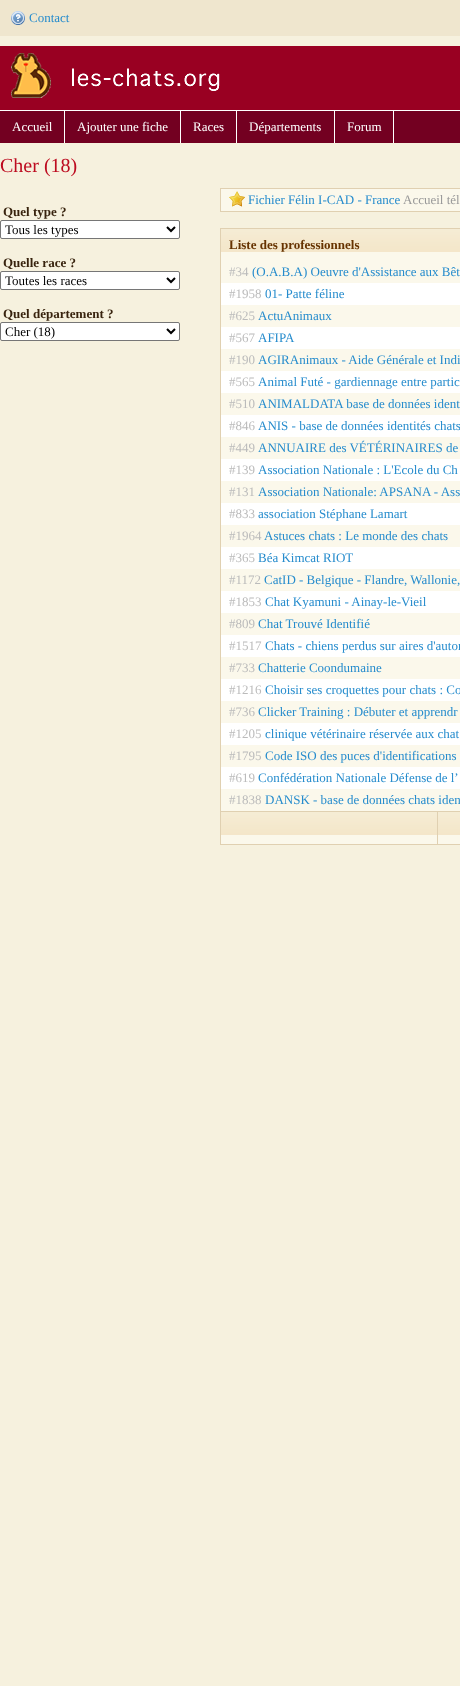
<!DOCTYPE html>
<meta charset="utf-8">
<style>body { margin: 0 } canvas { display: block }</style>
<canvas id="canvas" width="460" height="1686"></canvas>
<script type="module">
  const canvas = document.getElementById("canvas");
  const ctx = canvas.getContext("2d");
  ctx.miterLimit = 4;
  ctx.fontKerning = "normal";
  async function loadImage(src) {
    const img = new Image();
    img.src = src;
    await img.decode();
    return img;
  }

  ctx.fillStyle = "#f6f1de";
  ctx.fillRect(0, 0, 460, 1686);
  ctx.fillStyle = "#efe6ce";
  ctx.fillRect(0, 0, 460, 36);
  ctx.drawImage(await loadImage("img1.png"), 11, 11, 14, 14);
  ctx.font = "13px Liberation Serif";
  ctx.fillStyle = "#268ccd";
  ctx.fillText("Contact", 29, 22);
  ctx.fillStyle = "#990022";
  ctx.fillRect(0, 46, 460, 64);
  ctx.drawImage(await loadImage("img2.png"), 11, 53, 209, 45);
  ctx.fillStyle = "#730021";
  ctx.fillRect(0, 111, 460, 32);
  ctx.fillStyle = "#ffffff";
  ctx.fillRect(0, 110, 460, 1);
  ctx.fillRect(64, 111, 1, 32);
  ctx.fillText("Accueil", 12, 131);
  ctx.fillRect(180, 111, 1, 32);
  ctx.fillText("Ajouter une fiche", 77, 131);
  ctx.fillRect(236, 111, 1, 32);
  ctx.fillText("Races", 193, 131);
  ctx.fillRect(334, 111, 1, 32);
  ctx.fillText("Départements", 249, 131);
  ctx.fillRect(393, 111, 1, 32);
  ctx.fillText("Forum", 347, 131);
  ctx.font = "20px Liberation Serif";
  ctx.fillStyle = "#bd0c20";
  ctx.fillText("Cher (18)", 0, 172);
  ctx.font = "bold 13px Liberation Serif";
  ctx.fillStyle = "#38230e";
  ctx.fillText("Quel type ?", 3, 216);
  ctx.fillStyle = "#ffffff";
  ctx.beginPath();
  ctx.roundRect(0.5, 220.5, 179, 18, 1.5);
  ctx.fill();
  ctx.strokeStyle = "#767676";
  ctx.stroke();
  ctx.beginPath();
  ctx.moveTo(167, 227);
  ctx.lineTo(171, 231);
  ctx.lineTo(175, 227);
  ctx.strokeStyle = "#000000";
  ctx.lineWidth = 2;
  ctx.stroke();
  ctx.font = "13px Liberation Serif";
  ctx.fillStyle = "#000000";
  ctx.fillText("Tous les types", 5, 234);
  ctx.font = "bold 13px Liberation Serif";
  ctx.fillStyle = "#38230e";
  ctx.fillText("Quelle race ?", 3, 267);
  ctx.fillStyle = "#ffffff";
  ctx.beginPath();
  ctx.roundRect(0.5, 271.5, 179, 18, 1.5);
  ctx.fill();
  ctx.strokeStyle = "#767676";
  ctx.lineWidth = 1;
  ctx.stroke();
  ctx.beginPath();
  ctx.moveTo(167, 278);
  ctx.lineTo(171, 282);
  ctx.lineTo(175, 278);
  ctx.strokeStyle = "#000000";
  ctx.lineWidth = 2;
  ctx.stroke();
  ctx.font = "13px Liberation Serif";
  ctx.fillStyle = "#000000";
  ctx.fillText("Toutes les races", 5, 285);
  ctx.font = "bold 13px Liberation Serif";
  ctx.fillStyle = "#38230e";
  ctx.fillText("Quel département ?", 3, 318);
  ctx.fillStyle = "#ffffff";
  ctx.beginPath();
  ctx.roundRect(0.5, 322.5, 179, 18, 1.5);
  ctx.fill();
  ctx.strokeStyle = "#767676";
  ctx.lineWidth = 1;
  ctx.stroke();
  ctx.beginPath();
  ctx.moveTo(167, 329);
  ctx.lineTo(171, 333);
  ctx.lineTo(175, 329);
  ctx.strokeStyle = "#000000";
  ctx.lineWidth = 2;
  ctx.stroke();
  ctx.font = "13px Liberation Serif";
  ctx.fillStyle = "#000000";
  ctx.fillText("Cher (18)", 5, 336);
  ctx.fillStyle = "#e0d0b1";
  ctx.fillRect(220, 188, 240, 1);
  ctx.fillRect(220, 211, 240, 1);
  ctx.fillRect(220, 188, 1, 24);
  ctx.fillStyle = "#fbf8eb";
  ctx.fillRect(221, 189, 239, 22);
  ctx.drawImage(await loadImage("img3.png"), 229, 191, 16, 16);
  ctx.fillStyle = "#268ccd";
  ctx.fillText("Fichier Félin I-CAD - France", 248, 204);
  ctx.fillStyle = "#999999";
  ctx.fillText("Accueil tél", 403, 204);
  ctx.fillStyle = "#e0d0b1";
  ctx.fillRect(220, 228, 240, 1);
  ctx.fillRect(220, 811, 240, 1);
  ctx.fillRect(220, 228, 1, 584);
  ctx.drawImage(await loadImage("img4.png"), 221, 229, 239, 32);
  ctx.font = "bold 13px Liberation Serif";
  ctx.fillStyle = "#663300";
  ctx.fillText("Liste des professionnels", 229, 249);
  ctx.fillStyle = "#fbf8eb";
  ctx.fillRect(221, 261, 239, 22);
  ctx.font = "13px Liberation Serif";
  ctx.fillStyle = "#bbbbbb";
  ctx.fillText("#34", 229, 276);
  ctx.fillStyle = "#268ccd";
  ctx.fillText("(O.A.B.A) Oeuvre d'Assistance aux Bêt", 252, 276);
  ctx.fillStyle = "#ffffff";
  ctx.fillRect(221, 283, 239, 22);
  ctx.fillStyle = "#bbbbbb";
  ctx.fillText("#1958", 229, 298);
  ctx.fillStyle = "#268ccd";
  ctx.fillText("01- Patte féline", 265, 298);
  ctx.fillStyle = "#fbf8eb";
  ctx.fillRect(221, 305, 239, 22);
  ctx.fillStyle = "#bbbbbb";
  ctx.fillText("#625", 229, 320);
  ctx.fillStyle = "#268ccd";
  ctx.fillText("ActuAnimaux", 258, 320);
  ctx.fillStyle = "#ffffff";
  ctx.fillRect(221, 327, 239, 22);
  ctx.fillStyle = "#bbbbbb";
  ctx.fillText("#567", 229, 342);
  ctx.fillStyle = "#268ccd";
  ctx.fillText("AFIPA", 258, 342);
  ctx.fillStyle = "#fbf8eb";
  ctx.fillRect(221, 349, 239, 22);
  ctx.fillStyle = "#bbbbbb";
  ctx.fillText("#190", 229, 364);
  ctx.fillStyle = "#268ccd";
  ctx.fillText("AGIRAnimaux - Aide Générale et Indi", 258, 364);
  ctx.fillStyle = "#ffffff";
  ctx.fillRect(221, 371, 239, 22);
  ctx.fillStyle = "#bbbbbb";
  ctx.fillText("#565", 229, 386);
  ctx.fillStyle = "#268ccd";
  ctx.fillText("Animal Futé - gardiennage entre partic", 258, 386);
  ctx.fillStyle = "#fbf8eb";
  ctx.fillRect(221, 393, 239, 22);
  ctx.fillStyle = "#bbbbbb";
  ctx.fillText("#510", 229, 408);
  ctx.fillStyle = "#268ccd";
  ctx.fillText("ANIMALDATA base de données ident", 258, 408);
  ctx.fillStyle = "#ffffff";
  ctx.fillRect(221, 415, 239, 22);
  ctx.fillStyle = "#bbbbbb";
  ctx.fillText("#846", 229, 430);
  ctx.fillStyle = "#268ccd";
  ctx.fillText("ANIS - base de données identités chats", 258, 430);
  ctx.fillStyle = "#fbf8eb";
  ctx.fillRect(221, 437, 239, 22);
  ctx.fillStyle = "#bbbbbb";
  ctx.fillText("#449", 229, 452);
  ctx.fillStyle = "#268ccd";
  ctx.fillText("ANNUAIRE des VÉTÉRINAIRES de", 258, 452);
  ctx.fillStyle = "#ffffff";
  ctx.fillRect(221, 459, 239, 22);
  ctx.fillStyle = "#bbbbbb";
  ctx.fillText("#139", 229, 474);
  ctx.fillStyle = "#268ccd";
  ctx.fillText("Association Nationale : L'Ecole du Ch", 258, 474);
  ctx.fillStyle = "#fbf8eb";
  ctx.fillRect(221, 481, 239, 22);
  ctx.fillStyle = "#bbbbbb";
  ctx.fillText("#131", 229, 496);
  ctx.fillStyle = "#268ccd";
  ctx.fillText("Association Nationale: APSANA - Ass", 258, 496);
  ctx.fillStyle = "#ffffff";
  ctx.fillRect(221, 503, 239, 22);
  ctx.fillStyle = "#bbbbbb";
  ctx.fillText("#833", 229, 518);
  ctx.fillStyle = "#268ccd";
  ctx.fillText("association Stéphane Lamart", 258, 518);
  ctx.fillStyle = "#fbf8eb";
  ctx.fillRect(221, 525, 239, 22);
  ctx.fillStyle = "#bbbbbb";
  ctx.fillText("#1964", 229, 540);
  ctx.fillStyle = "#268ccd";
  ctx.fillText("Astuces chats : Le monde des chats", 264, 540);
  ctx.fillStyle = "#ffffff";
  ctx.fillRect(221, 547, 239, 22);
  ctx.fillStyle = "#bbbbbb";
  ctx.fillText("#365", 229, 562);
  ctx.fillStyle = "#268ccd";
  ctx.fillText("Béa Kimcat RIOT", 258, 562);
  ctx.fillStyle = "#fbf8eb";
  ctx.fillRect(221, 569, 239, 22);
  ctx.fillStyle = "#bbbbbb";
  ctx.fillText("#1172", 229, 584);
  ctx.fillStyle = "#268ccd";
  ctx.fillText("CatID - Belgique - Flandre, Wallonie,", 264, 584);
  ctx.fillStyle = "#ffffff";
  ctx.fillRect(221, 591, 239, 22);
  ctx.fillStyle = "#bbbbbb";
  ctx.fillText("#1853", 229, 606);
  ctx.fillStyle = "#268ccd";
  ctx.fillText("Chat Kyamuni - Ainay-le-Vieil", 265, 606);
  ctx.fillStyle = "#fbf8eb";
  ctx.fillRect(221, 613, 239, 22);
  ctx.fillStyle = "#bbbbbb";
  ctx.fillText("#809", 229, 628);
  ctx.fillStyle = "#268ccd";
  ctx.fillText("Chat Trouvé Identifié", 258, 628);
  ctx.fillStyle = "#ffffff";
  ctx.fillRect(221, 635, 239, 22);
  ctx.fillStyle = "#bbbbbb";
  ctx.fillText("#1517", 229, 650);
  ctx.fillStyle = "#268ccd";
  ctx.fillText("Chats - chiens perdus sur aires d'autor", 265, 650);
  ctx.fillStyle = "#fbf8eb";
  ctx.fillRect(221, 657, 239, 22);
  ctx.fillStyle = "#bbbbbb";
  ctx.fillText("#733", 229, 672);
  ctx.fillStyle = "#268ccd";
  ctx.fillText("Chatterie Coondumaine", 258, 672);
  ctx.fillStyle = "#ffffff";
  ctx.fillRect(221, 679, 239, 22);
  ctx.fillStyle = "#bbbbbb";
  ctx.fillText("#1216", 229, 694);
  ctx.fillStyle = "#268ccd";
  ctx.fillText("Choisir ses croquettes pour chats : Co", 265, 694);
  ctx.fillStyle = "#fbf8eb";
  ctx.fillRect(221, 701, 239, 22);
  ctx.fillStyle = "#bbbbbb";
  ctx.fillText("#736", 229, 716);
  ctx.fillStyle = "#268ccd";
  ctx.fillText("Clicker Training : Débuter et apprendr", 258, 716);
  ctx.fillStyle = "#ffffff";
  ctx.fillRect(221, 723, 239, 22);
  ctx.fillStyle = "#bbbbbb";
  ctx.fillText("#1205", 229, 738);
  ctx.fillStyle = "#268ccd";
  ctx.fillText("clinique vétérinaire réservée aux chat", 265, 738);
  ctx.fillStyle = "#fbf8eb";
  ctx.fillRect(221, 745, 239, 22);
  ctx.fillStyle = "#bbbbbb";
  ctx.fillText("#1795", 229, 760);
  ctx.fillStyle = "#268ccd";
  ctx.fillText("Code ISO des puces d'identifications", 265, 760);
  ctx.fillStyle = "#ffffff";
  ctx.fillRect(221, 767, 239, 22);
  ctx.fillStyle = "#bbbbbb";
  ctx.fillText("#619", 229, 782);
  ctx.fillStyle = "#268ccd";
  ctx.fillText("Confédération Nationale Défense de l’", 258, 782);
  ctx.fillStyle = "#fbf8eb";
  ctx.fillRect(221, 789, 239, 22);
  ctx.fillStyle = "#bbbbbb";
  ctx.fillText("#1838", 229, 804);
  ctx.fillStyle = "#268ccd";
  ctx.fillText("DANSK - base de données chats iden", 265, 804);
  ctx.fillStyle = "#e0d0b1";
  ctx.fillRect(220, 844, 240, 1);
  ctx.fillRect(220, 812, 1, 33);
  ctx.drawImage(await loadImage("img5.png"), 221, 812, 216, 32);
  ctx.fillRect(437, 811, 1, 34);
  ctx.drawImage(await loadImage("img6.png"), 438, 812, 22, 32);
</script>
